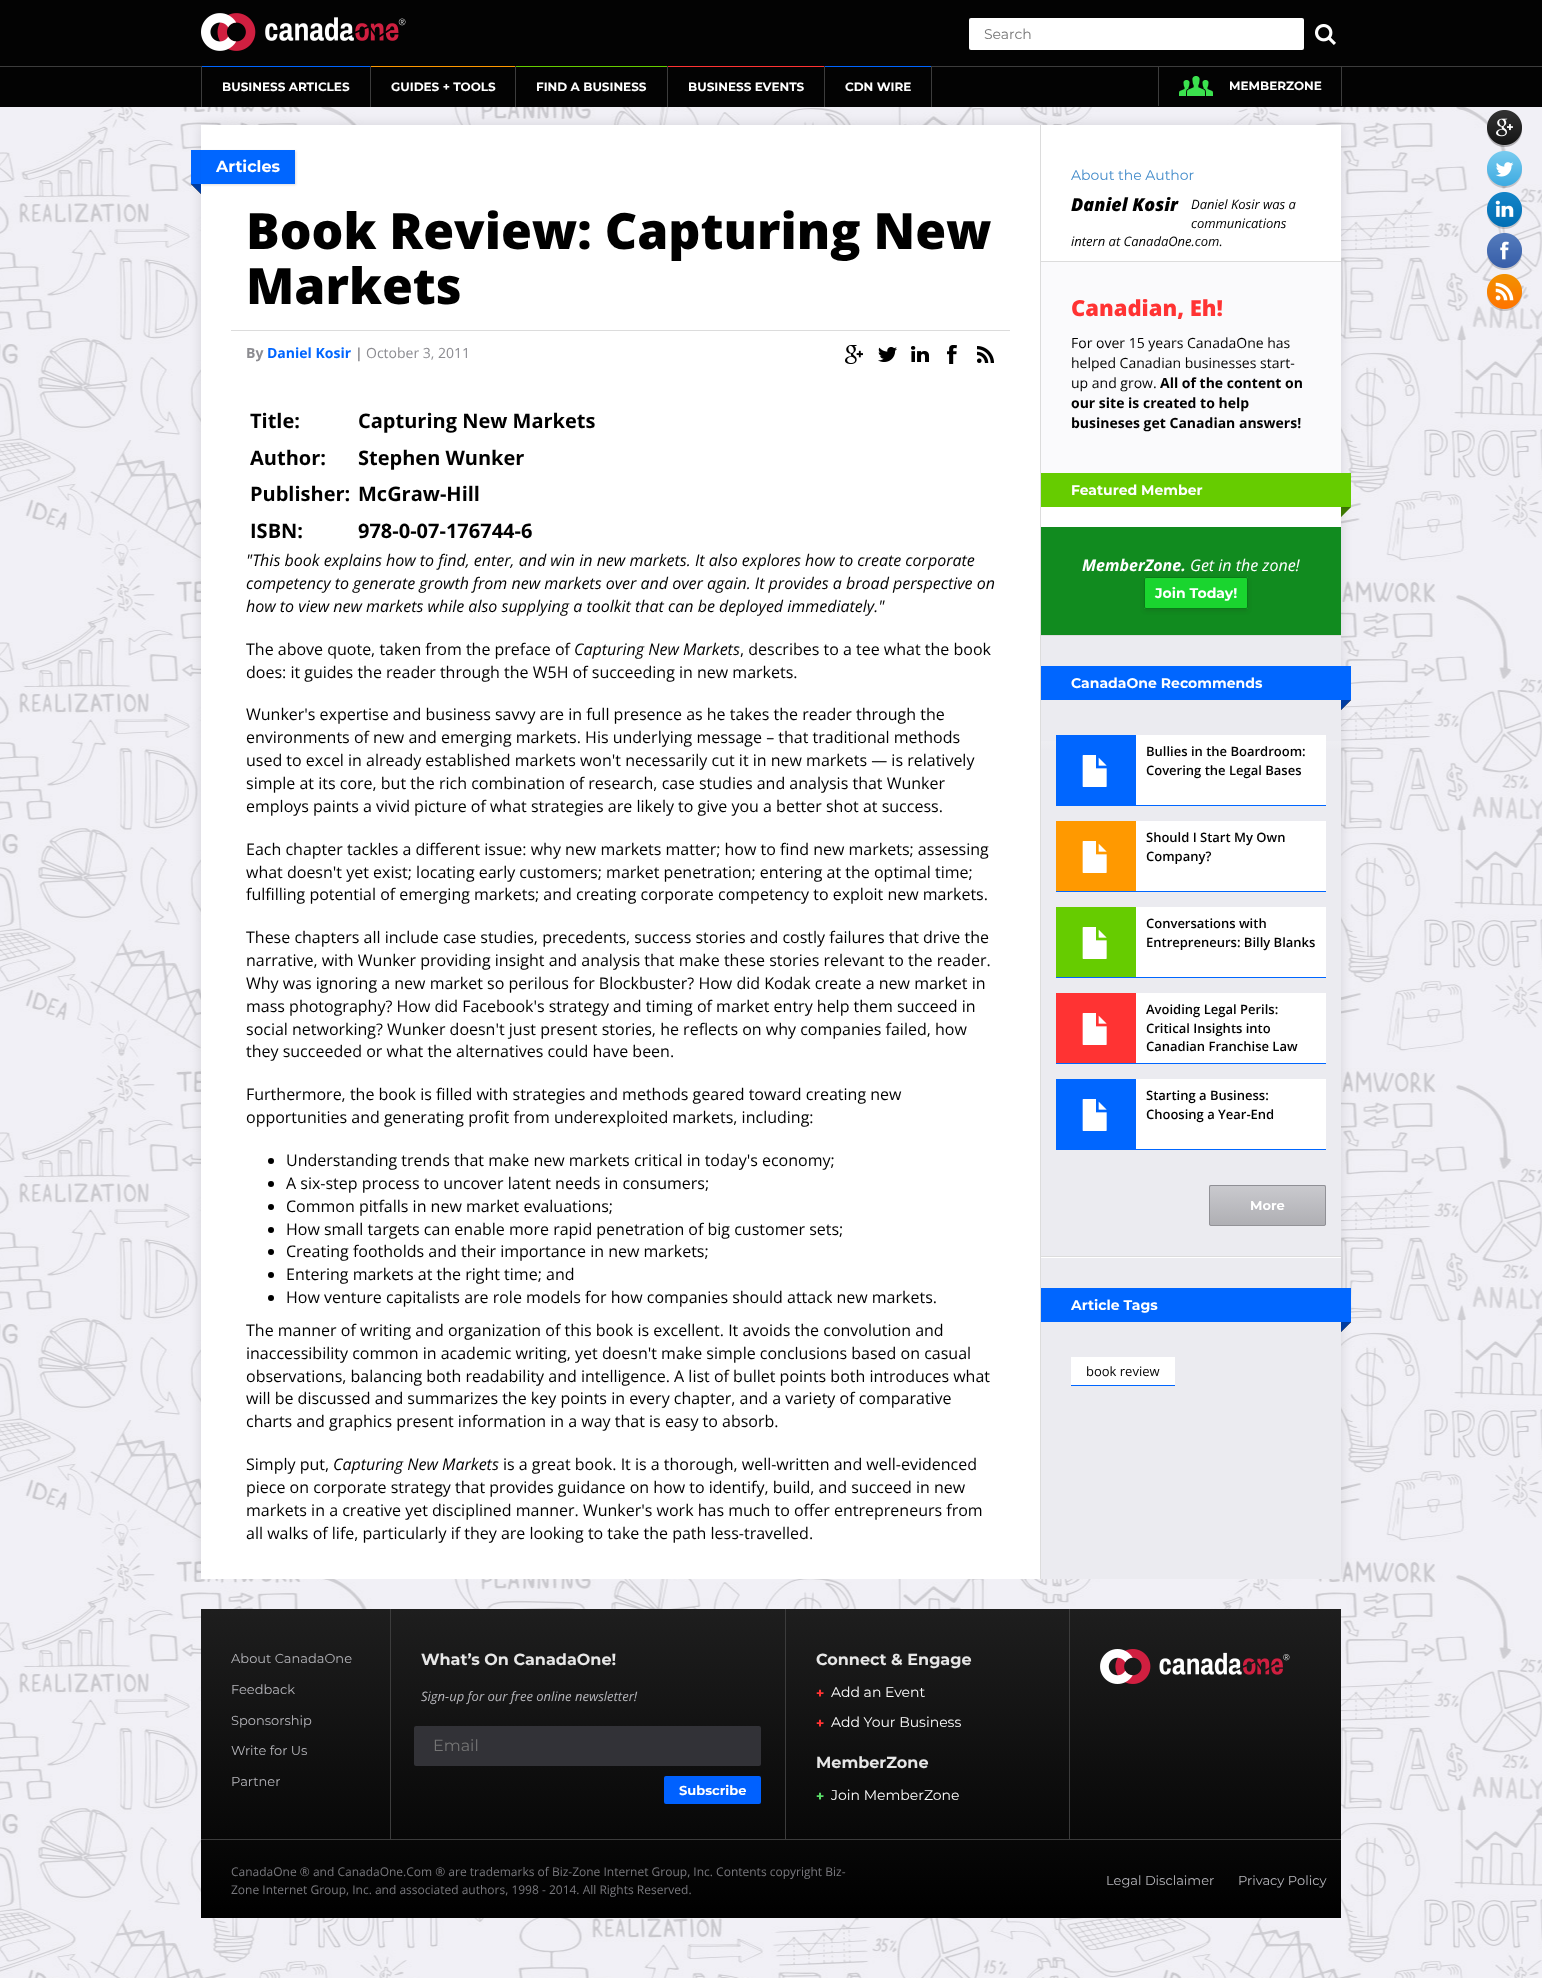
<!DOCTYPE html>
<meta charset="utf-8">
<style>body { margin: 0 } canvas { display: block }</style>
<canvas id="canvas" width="1542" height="1978"></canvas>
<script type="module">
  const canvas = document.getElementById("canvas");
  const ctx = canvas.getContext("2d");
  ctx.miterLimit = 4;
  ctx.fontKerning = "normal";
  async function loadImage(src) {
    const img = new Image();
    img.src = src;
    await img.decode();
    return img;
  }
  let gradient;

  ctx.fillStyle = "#ffffff";
  ctx.fillRect(0, 0, 1542, 1978);
  ctx.drawImage(await loadImage("img1.png"), 0, 107, 1542, 1871);
  ctx.save();
  ctx.beginPath();
  ctx.rect(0, 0, 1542, 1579);
  ctx.clip();
  ctx.fillStyle = "rgba(0, 0, 0, 0.12)";
  ctx.filter = "blur(6px)";
  ctx.beginPath();
  ctx.rect(201, 125, 1140, 1454);
  ctx.fill();
  ctx.filter = "none";
  ctx.restore();
  ctx.fillStyle = "#030303";
  ctx.fillRect(0, 0, 1542, 107);
  ctx.drawImage(await loadImage("img2.png"), 201, 13, 205, 38);
  ctx.fillStyle = "#ffffff";
  ctx.beginPath();
  ctx.roundRect(969, 18, 335, 32, 2);
  ctx.fill();
  ctx.font = "14px Montserrat";
  ctx.fillStyle = "#757575";
  ctx.fillText("Search", 984, 39);
  ctx.drawImage(await loadImage("img3.png"), 1315, 24, 21, 21);
  ctx.fillStyle = "#3c3c3c";
  ctx.fillRect(0, 66, 1542, 1);
  ctx.fillStyle = "#0066ff";
  ctx.fillRect(201, 66, 170, 1);
  ctx.fillStyle = "#3c3c3c";
  ctx.fillRect(201, 66, 1, 41);
  ctx.font = "bold 12px Montserrat";
  ctx.fillStyle = "#ffffff";
  ctx.fillText("BUSINESS ARTICLES", 222, 91);
  ctx.fillStyle = "#ff9900";
  ctx.fillRect(370, 66, 146, 1);
  ctx.fillStyle = "#3c3c3c";
  ctx.fillRect(370, 66, 1, 41);
  ctx.fillStyle = "#ffffff";
  ctx.fillText("GUIDES + TOOLS", 391, 91);
  ctx.fillStyle = "#66cc00";
  ctx.fillRect(515, 66, 153, 1);
  ctx.fillStyle = "#3c3c3c";
  ctx.fillRect(515, 66, 1, 41);
  ctx.fillStyle = "#ffffff";
  ctx.fillText("FIND A BUSINESS", 536, 91);
  ctx.fillStyle = "#ff3333";
  ctx.fillRect(667, 66, 158, 1);
  ctx.fillStyle = "#3c3c3c";
  ctx.fillRect(667, 66, 1, 41);
  ctx.fillStyle = "#ffffff";
  ctx.fillText("BUSINESS EVENTS", 688, 91);
  ctx.fillStyle = "#0066ff";
  ctx.fillRect(824, 66, 108, 1);
  ctx.fillStyle = "#3c3c3c";
  ctx.fillRect(931, 66, 1, 41);
  ctx.fillRect(824, 66, 1, 41);
  ctx.fillStyle = "#ffffff";
  ctx.fillText("CDN WIRE", 845, 91);
  ctx.fillStyle = "#3c3c3c";
  ctx.fillRect(1341, 66, 1, 40);
  ctx.fillRect(1158, 66, 1, 40);
  ctx.drawImage(await loadImage("img4.png"), 1179, 76, 34, 20);
  ctx.fillStyle = "#ffffff";
  ctx.fillText("MEMBERZONE", 1229, 90);
  ctx.fillRect(201, 125, 839, 1454);
  ctx.fillStyle = "#dcdcdc";
  ctx.fillRect(1040, 125, 1, 1454);
  ctx.drawImage(await loadImage("img5.png"), 191, 150, 10, 44);
  ctx.fillStyle = "rgba(33, 30, 30, 0.15)";
  ctx.filter = "blur(1px)";
  ctx.beginPath();
  ctx.rect(202, 151, 94, 34);
  ctx.fill();
  ctx.filter = "none";
  ctx.fillStyle = "#0066ff";
  ctx.fillRect(201, 150, 94, 34);
  ctx.font = "bold 16px Montserrat";
  ctx.fillStyle = "#ffffff";
  ctx.fillText("Articles", 216, 172);
  ctx.font = "800 50px Open Sans";
  ctx.fillStyle = "#000000";
  ctx.fillText("Book Review: Capturing New", 246, 249);
  ctx.fillText("Markets", 246, 304);
  ctx.fillStyle = "#dcdcdc";
  ctx.fillRect(231, 330, 779, 1);
  ctx.font = "bold 14px Open Sans";
  ctx.fillStyle = "#8c8c91";
  ctx.fillText("By", 246, 358);
  ctx.fillStyle = "#0066ff";
  ctx.fillText("Daniel Kosir", 267, 358);
  ctx.fillStyle = "#8c8c91";
  ctx.fillText("|", 355, 358);
  ctx.font = "14px Open Sans";
  ctx.fillText("October 3, 2011", 366, 358);
  ctx.drawImage(await loadImage("img6.png"), 845, 345, 18, 19);
  ctx.drawImage(await loadImage("img7.png"), 878, 347, 19, 15);
  ctx.drawImage(await loadImage("img8.png"), 911, 346, 18, 16);
  ctx.drawImage(await loadImage("img9.png"), 947, 345, 10, 19);
  ctx.drawImage(await loadImage("img10.png"), 977, 346, 17, 17);
  ctx.font = "bold 20px Open Sans";
  ctx.fillStyle = "#000000";
  ctx.fillText("Title:", 250, 428);
  ctx.fillText("Capturing New Markets", 358, 428);
  ctx.fillText("Author:", 250, 465);
  ctx.fillText("Stephen Wunker", 358, 465);
  ctx.fillText("Publisher:", 250, 501);
  ctx.fillText("McGraw-Hill", 358, 501);
  ctx.fillText("ISBN:", 250, 538);
  ctx.fillText("978-0-07-176744-6", 358, 538);
  ctx.font = "italic 16px Open Sans";
  ctx.fillText("\"This book explains how to find, enter, and win in new markets. It also explores how to create corporate", 246, 566);
  ctx.fillText("competency to generate growth from new markets over and over again. It provides a broad perspective on", 246, 589);
  ctx.fillText("how to view new markets while also supplying a toolkit that can be deployed immediately.\"", 246, 612);
  ctx.font = "16px Open Sans";
  ctx.fillText("The above quote, taken from the preface of", 246, 655);
  ctx.font = "italic 16px Open Sans";
  ctx.fillText("Capturing New Markets", 574, 655);
  ctx.font = "16px Open Sans";
  ctx.fillText(", describes to a tee what the book", 740, 655);
  ctx.fillText("does: it guides the reader through the W5H of succeeding in new markets.", 246, 678);
  ctx.fillText("Wunker's expertise and business savvy are in full presence as he takes the reader through the", 246, 720);
  ctx.fillText("environments of new and emerging markets. His underlying message – that traditional methods", 246, 743);
  ctx.fillText("used to excel in already established markets won't necessarily cut it in new markets — is relatively", 246, 766);
  ctx.fillText("simple at its core, but the rich combination of research, case studies and analysis that Wunker", 246, 789);
  ctx.fillText("employs paints a vivid picture of what strategies are likely to give you a better shot at success.", 246, 812);
  ctx.fillText("Each chapter tackles a different issue: why new markets matter; how to find new markets; assessing", 246, 855);
  ctx.fillText("what doesn't yet exist; locating early customers; market penetration; entering at the optimal time;", 246, 878);
  ctx.fillText("fulfilling potential of emerging markets; and creating corporate competency to exploit new markets.", 246, 900);
  ctx.fillText("These chapters all include case studies, precedents, success stories and costly failures that drive the", 246, 943);
  ctx.fillText("narrative, with Wunker providing insight and analysis that make these stories relevant to the reader.", 246, 966);
  ctx.fillText("Why was ignoring a new market so perilous for Blockbuster? How did Kodak create a new market in", 246, 989);
  ctx.fillText("mass photography? How did Facebook's strategy and timing of market entry help them succeed in", 246, 1012);
  ctx.fillText("social networking? Wunker doesn't just present stories, he reflects on why companies failed, how", 246, 1035);
  ctx.fillText("they succeeded or what the alternatives could have been.", 246, 1057);
  ctx.fillText("Furthermore, the book is filled with strategies and methods geared toward creating new", 246, 1100);
  ctx.fillText("opportunities and generating profit from underexploited markets, including:", 246, 1123);
  ctx.beginPath();
  ctx.arc(271, 1161, 3, 0, Math.PI * 2);
  ctx.fill();
  ctx.fillText("Understanding trends that make new markets critical in today's economy;", 286, 1166);
  ctx.beginPath();
  ctx.arc(271, 1184, 3, 0, Math.PI * 2);
  ctx.fill();
  ctx.fillText("A six-step process to uncover latent needs in consumers;", 286, 1189);
  ctx.beginPath();
  ctx.arc(271, 1207, 3, 0, Math.PI * 2);
  ctx.fill();
  ctx.fillText("Common pitfalls in new market evaluations;", 286, 1212);
  ctx.beginPath();
  ctx.arc(271, 1230, 3, 0, Math.PI * 2);
  ctx.fill();
  ctx.fillText("How small targets can enable more rapid penetration of big customer sets;", 286, 1235);
  ctx.beginPath();
  ctx.arc(271, 1252, 3, 0, Math.PI * 2);
  ctx.fill();
  ctx.fillText("Creating footholds and their importance in new markets;", 286, 1257);
  ctx.beginPath();
  ctx.arc(271, 1275, 3, 0, Math.PI * 2);
  ctx.fill();
  ctx.fillText("Entering markets at the right time; and", 286, 1280);
  ctx.beginPath();
  ctx.arc(271, 1298, 3, 0, Math.PI * 2);
  ctx.fill();
  ctx.fillText("How venture capitalists are role models for how companies should attack new markets.", 286, 1303);
  ctx.fillText("The manner of writing and organization of this book is excellent. It avoids the convolution and", 246, 1336);
  ctx.fillText("inaccessibility common in academic writing, yet doesn't make simple conclusions based on casual", 246, 1359);
  ctx.fillText("observations, balancing both readability and intelligence. A list of bullet points both introduces what", 246, 1382);
  ctx.fillText("will be discussed and summarizes the key points in every chapter, and a variety of comparative", 246, 1404);
  ctx.fillText("charts and graphics present information in a way that is easy to absorb.", 246, 1427);
  ctx.fillText("Simply put,", 246, 1470);
  ctx.font = "italic 16px Open Sans";
  ctx.fillText("Capturing New Markets", 333, 1470);
  ctx.font = "16px Open Sans";
  ctx.fillText("is a great book. It is a thorough, well-written and well-evidenced", 503, 1470);
  ctx.fillText("piece on corporate strategy that provides guidance on how to identify, build, and succeed in new", 246, 1493);
  ctx.fillText("markets in a creative yet disciplined manner. Wunker's work has much to offer entrepreneurs from", 246, 1516);
  ctx.fillText("all walks of life, particularly if they are looking to take the path less-travelled.", 246, 1539);
  gradient = ctx.createLinearGradient(1191, 125, 1191, 1579);
  gradient.addColorStop(0, "#ffffff");
  gradient.addColorStop(0.38, "#ffffff");
  gradient.addColorStop(0.43, "#ebebf0");
  gradient.addColorStop(1, "#ebebf0");
  ctx.fillStyle = gradient;
  ctx.fillRect(1041, 125, 300, 1454);
  ctx.font = "14px Montserrat";
  ctx.fillStyle = "#428bca";
  ctx.fillText("About the Author", 1071, 180);
  ctx.font = "italic 800 18px Open Sans";
  ctx.fillStyle = "#000000";
  ctx.fillText("Daniel Kosir", 1071, 211);
  ctx.font = "italic 13px Open Sans";
  ctx.fillText("Daniel Kosir was a", 1191, 209);
  ctx.fillText("communications", 1191, 228);
  ctx.fillText("intern at CanadaOne.com.", 1071, 246);
  ctx.fillStyle = "#dcdcdc";
  ctx.fillRect(1041, 261, 300, 1);
  ctx.fillStyle = "#fafafc";
  ctx.fillRect(1041, 262, 300, 211);
  ctx.font = "800 22px Open Sans";
  ctx.fillStyle = "#ff3333";
  ctx.fillText("Canadian, Eh!", 1071, 316);
  ctx.font = "14px Open Sans";
  ctx.fillStyle = "#000000";
  ctx.fillText("For over 15 years CanadaOne has", 1071, 348);
  ctx.fillText("helped Canadian businesses start-", 1071, 368);
  ctx.fillText("up and grow.", 1071, 388);
  ctx.font = "bold 14px Open Sans";
  ctx.fillText("All of the content on", 1160, 388);
  ctx.fillText("our site is created to help", 1071, 408);
  ctx.fillText("busineses get Canadian answers!", 1071, 428);
  ctx.drawImage(await loadImage("img11.png"), 1341, 507, 10, 10);
  ctx.fillStyle = "#66cc00";
  ctx.fillRect(1041, 473, 310, 34);
  ctx.font = "bold 14px Montserrat";
  ctx.fillStyle = "#ffffff";
  ctx.fillText("Featured Member", 1071, 495);
  ctx.fillStyle = "#118b1f";
  ctx.fillRect(1041, 527, 300, 108);
  ctx.font = "italic bold 16px Open Sans";
  ctx.fillStyle = "#ffffff";
  ctx.fillText("MemberZone.", 1082, 571);
  ctx.font = "italic 16px Open Sans";
  ctx.fillText("Get in the zone!", 1190, 571);
  ctx.fillStyle = "rgba(33, 30, 30, 0.15)";
  ctx.filter = "blur(2px)";
  ctx.beginPath();
  ctx.roundRect(1144, 579, 104, 32, 2);
  ctx.fill();
  ctx.filter = "none";
  ctx.fillStyle = "#1ad52f";
  ctx.beginPath();
  ctx.roundRect(1144, 577, 104, 32, 2);
  ctx.fill();
  ctx.beginPath();
  ctx.roundRect(1144.5, 577.5, 103, 31, 1.5);
  ctx.strokeStyle = "rgba(8, 114, 21, 0.9)";
  ctx.stroke();
  ctx.font = "bold 14px Montserrat";
  ctx.fillStyle = "#ffffff";
  ctx.fillText("Join Today!", 1155, 598);
  ctx.fillStyle = "#dcdcdc";
  ctx.fillRect(1041, 635, 300, 1);
  ctx.fillStyle = "#ebebf0";
  ctx.fillRect(1041, 636, 300, 105);
  ctx.drawImage(await loadImage("img12.png"), 1341, 700, 10, 10);
  ctx.fillStyle = "#0066ff";
  ctx.fillRect(1041, 666, 310, 34);
  ctx.fillStyle = "#ffffff";
  ctx.fillText("CanadaOne Recommends", 1071, 688);
  ctx.fillRect(1136, 735, 190, 70);
  ctx.fillStyle = "#0066ff";
  ctx.fillRect(1056, 805, 270, 1);
  ctx.fillRect(1056, 735, 80, 70);
  ctx.drawImage(await loadImage("img13.png"), 1082, 755, 25, 32);
  ctx.font = "600 13px Open Sans";
  ctx.fillStyle = "#000000";
  ctx.fillText("Bullies in the Boardroom:", 1146, 756);
  ctx.fillText("Covering the Legal Bases", 1146, 775);
  ctx.fillStyle = "#ffffff";
  ctx.fillRect(1136, 821, 190, 70);
  ctx.fillStyle = "#0066ff";
  ctx.fillRect(1056, 891, 270, 1);
  ctx.fillStyle = "#ff9900";
  ctx.fillRect(1056, 821, 80, 70);
  ctx.drawImage(await loadImage("img14.png"), 1082, 841, 25, 32);
  ctx.fillStyle = "#000000";
  ctx.fillText("Should I Start My Own", 1146, 842);
  ctx.fillText("Company?", 1146, 861);
  ctx.fillStyle = "#ffffff";
  ctx.fillRect(1136, 907, 190, 70);
  ctx.fillStyle = "#0066ff";
  ctx.fillRect(1056, 977, 270, 1);
  ctx.fillStyle = "#66cc00";
  ctx.fillRect(1056, 907, 80, 70);
  ctx.drawImage(await loadImage("img15.png"), 1082, 927, 25, 32);
  ctx.fillStyle = "#000000";
  ctx.fillText("Conversations with", 1146, 928);
  ctx.fillText("Entrepreneurs: Billy Blanks", 1146, 947);
  ctx.fillStyle = "#ffffff";
  ctx.fillRect(1136, 993, 190, 70);
  ctx.fillStyle = "#0066ff";
  ctx.fillRect(1056, 1063, 270, 1);
  ctx.fillStyle = "#ff3333";
  ctx.fillRect(1056, 993, 80, 70);
  ctx.drawImage(await loadImage("img16.png"), 1082, 1013, 25, 32);
  ctx.fillStyle = "#000000";
  ctx.fillText("Avoiding Legal Perils:", 1146, 1014);
  ctx.fillText("Critical Insights into", 1146, 1033);
  ctx.fillText("Canadian Franchise Law", 1146, 1051);
  ctx.fillStyle = "#ffffff";
  ctx.fillRect(1136, 1079, 190, 70);
  ctx.fillStyle = "#0066ff";
  ctx.fillRect(1056, 1149, 270, 1);
  ctx.fillRect(1056, 1079, 80, 70);
  ctx.drawImage(await loadImage("img13.png"), 1082, 1099, 25, 32);
  ctx.fillStyle = "#000000";
  ctx.fillText("Starting a Business:", 1146, 1100);
  ctx.fillText("Choosing a Year-End", 1146, 1119);
  ctx.fillStyle = "#c3c3c8";
  ctx.beginPath();
  ctx.roundRect(1209, 1185, 117, 41, 2);
  ctx.fill();
  gradient = ctx.createLinearGradient(1268, 1186, 1268, 1147);
  gradient.addColorStop(0, "rgba(0, 0, 0, 0.1)");
  gradient.addColorStop(1, "rgba(255, 255, 255, 0.1)");
  ctx.fillStyle = gradient;
  ctx.fillRect(1209, 1185, 117, 1);
  gradient = ctx.createLinearGradient(1268, 1225, 1268, 1186);
  gradient.addColorStop(0, "rgba(0, 0, 0, 0.1)");
  gradient.addColorStop(1, "rgba(255, 255, 255, 0.1)");
  ctx.fillStyle = gradient;
  ctx.fillRect(1209, 1186, 117, 39);
  gradient = ctx.createLinearGradient(1268, 1264, 1268, 1225);
  gradient.addColorStop(0, "rgba(0, 0, 0, 0.1)");
  gradient.addColorStop(1, "rgba(255, 255, 255, 0.1)");
  ctx.fillStyle = gradient;
  ctx.fillRect(1209, 1225, 117, 1);
  ctx.beginPath();
  ctx.roundRect(1209.5, 1185.5, 116, 40, 1.5);
  ctx.strokeStyle = "rgba(140, 140, 145, 0.9)";
  ctx.stroke();
  ctx.font = "bold 13px Montserrat";
  ctx.fillStyle = "#ffffff";
  ctx.fillText("More", 1250, 1210);
  ctx.fillStyle = "#dcdcdc";
  ctx.fillRect(1041, 1256, 300, 1);
  ctx.fillStyle = "#ffffff";
  ctx.fillRect(1041, 1257, 300, 1);
  ctx.drawImage(await loadImage("img17.png"), 1341, 1322, 10, 10);
  ctx.fillStyle = "#0066ff";
  ctx.fillRect(1041, 1288, 310, 34);
  ctx.font = "bold 14px Montserrat";
  ctx.fillStyle = "#ffffff";
  ctx.fillText("Article Tags", 1071, 1310);
  ctx.fillRect(1071, 1357, 104, 28);
  ctx.fillStyle = "#0066ff";
  ctx.fillRect(1071, 1385, 104, 1);
  ctx.font = "13px Open Sans";
  ctx.fillStyle = "#000000";
  ctx.fillText("book review", 1086, 1376);
  ctx.drawImage(await loadImage("img18.png"), 1487, 110, 35, 37);
  ctx.drawImage(await loadImage("img19.png"), 1487, 151, 35, 37);
  ctx.drawImage(await loadImage("img20.png"), 1487, 192, 35, 37);
  ctx.drawImage(await loadImage("img21.png"), 1487, 233, 35, 37);
  ctx.drawImage(await loadImage("img22.png"), 1487, 274, 35, 37);
  gradient = ctx.createLinearGradient(771, 1609, 771, 1918);
  gradient.addColorStop(0, "#1e1e1e");
  gradient.addColorStop(1, "#000000");
  ctx.fillStyle = gradient;
  ctx.fillRect(201, 1609, 1140, 309);
  ctx.fillStyle = "#3c3c3c";
  ctx.fillRect(390, 1609, 1, 230);
  ctx.font = "13px Montserrat";
  ctx.fillStyle = "#b4b4b9";
  ctx.fillText("About CanadaOne", 231, 1663);
  ctx.fillText("Feedback", 231, 1694);
  ctx.fillText("Sponsorship", 231, 1725);
  ctx.fillText("Write for Us", 231, 1755);
  ctx.fillText("Partner", 231, 1786);
  ctx.font = "bold 16px Montserrat";
  ctx.fillStyle = "#e6e6e6";
  ctx.fillText("What’s On CanadaOne!", 421, 1665);
  ctx.font = "italic 13px Open Sans";
  ctx.fillStyle = "#b4b4b9";
  ctx.fillText("Sign-up for our free online newsletter!", 421, 1701);
  ctx.fillStyle = "#323237";
  ctx.beginPath();
  ctx.roundRect(414, 1726, 347, 40, 2);
  ctx.fill();
  ctx.font = "16px Montserrat";
  ctx.fillStyle = "#757575";
  ctx.fillText("Email", 433, 1751);
  ctx.fillStyle = "#0061ff";
  ctx.beginPath();
  ctx.roundRect(664, 1776, 97, 28, 2);
  ctx.fill();
  ctx.font = "bold 13px Montserrat";
  ctx.fillStyle = "#ffffff";
  ctx.fillText("Subscribe", 679, 1795);
  ctx.fillStyle = "#3c3c3c";
  ctx.fillRect(1069, 1609, 1, 230);
  ctx.fillRect(785, 1609, 1, 230);
  ctx.font = "bold 16px Montserrat";
  ctx.fillStyle = "#e6e6e6";
  ctx.fillText("Connect & Engage", 816, 1665);
  ctx.drawImage(await loadImage("img23.png"), 816, 1689, 8, 8);
  ctx.font = "14px Montserrat";
  ctx.fillStyle = "#ffffff";
  ctx.fillText("Add an Event", 831, 1697);
  ctx.drawImage(await loadImage("img24.png"), 816, 1719, 8, 8);
  ctx.fillText("Add Your Business", 831, 1727);
  ctx.font = "bold 16px Montserrat";
  ctx.fillStyle = "#e6e6e6";
  ctx.fillText("MemberZone", 816, 1768);
  ctx.drawImage(await loadImage("img25.png"), 816, 1792, 8, 8);
  ctx.font = "14px Montserrat";
  ctx.fillStyle = "#ffffff";
  ctx.fillText("Join MemberZone", 831, 1800);
  ctx.drawImage(await loadImage("img26.png"), 1100, 1649, 190, 35);
  ctx.fillStyle = "#3c3c3c";
  ctx.fillRect(201, 1839, 1140, 1);
  ctx.font = "12px Open Sans";
  ctx.fillStyle = "#78787d";
  ctx.fillText("CanadaOne ® and CanadaOne.Com ® are trademarks of Biz-Zone Internet Group, Inc. Contents copyright Biz-", 231, 1876);
  ctx.fillText("Zone Internet Group, Inc. and associated authors, 1998 - 2014. All Rights Reserved.", 231, 1894);
  ctx.font = "13px Montserrat";
  ctx.fillStyle = "#b4b4b9";
  ctx.fillText("Legal Disclaimer", 1106, 1885);
  ctx.fillText("Privacy Policy", 1238, 1885);
</script>
